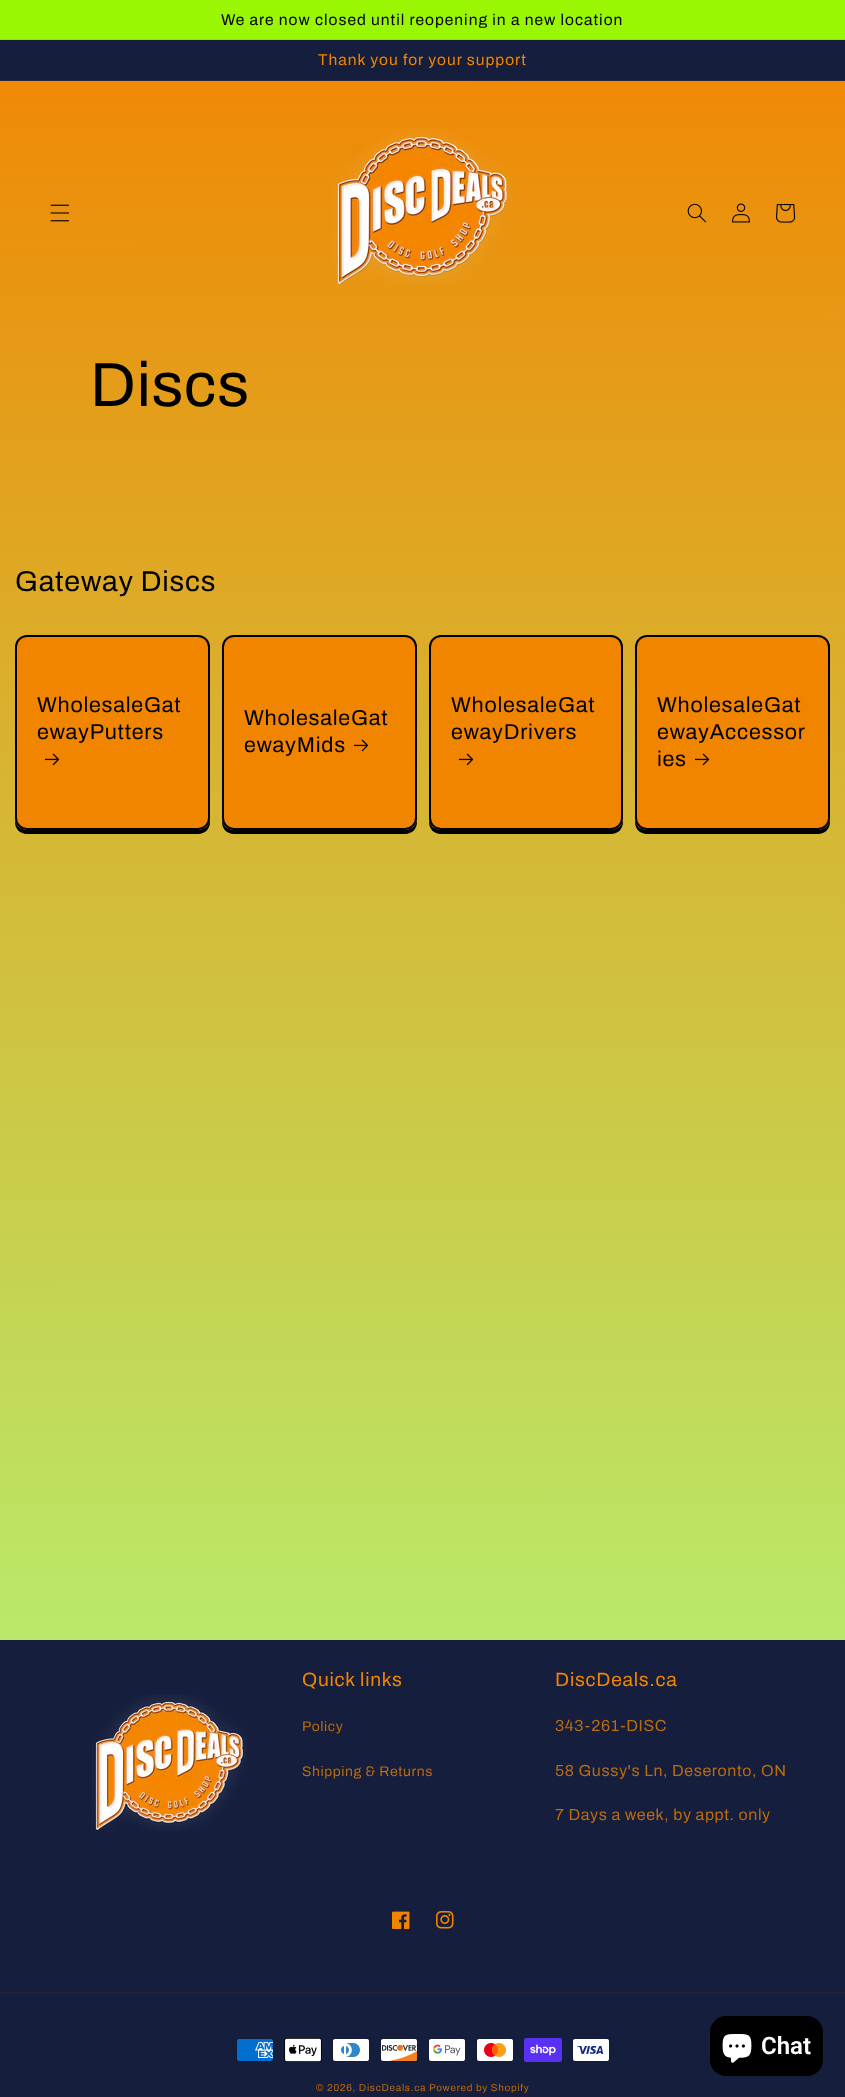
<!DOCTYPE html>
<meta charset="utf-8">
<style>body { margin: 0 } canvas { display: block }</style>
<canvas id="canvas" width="845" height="2097"></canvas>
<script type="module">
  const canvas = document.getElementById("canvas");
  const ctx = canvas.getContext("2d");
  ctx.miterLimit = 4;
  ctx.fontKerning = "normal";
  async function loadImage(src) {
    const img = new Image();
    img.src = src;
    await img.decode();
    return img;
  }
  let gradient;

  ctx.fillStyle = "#ffffff";
  ctx.fillRect(0, 0, 845, 2097);
  gradient = ctx.createLinearGradient(422, 0, 423, 2097);
  gradient.addColorStop(0, "#f28500");
  gradient.addColorStop(0.79, "#b9ea6a");
  gradient.addColorStop(1, "#f28500");
  ctx.fillStyle = gradient;
  ctx.fillRect(0, 81, 845, 1559);
  ctx.fillStyle = "#9af703";
  ctx.fillRect(0, 0, 845, 39);
  ctx.fillStyle = "#8ee303";
  ctx.fillRect(0, 39, 845, 1);
  ctx.letterSpacing = "1px";
  ctx.font = "15.6px Archivo";
  ctx.fillStyle = "#000000";
  ctx.fillText("We are now closed until reopening in a new location", 221, 25);
  ctx.fillStyle = "#151e3d";
  ctx.fillRect(0, 40, 845, 40);
  ctx.fillStyle = "#272638";
  ctx.fillRect(0, 80, 845, 1);
  ctx.fillStyle = "#f28500";
  ctx.fillText("Thank you for your support", 318, 65);
  ctx.drawImage(await loadImage("img1.png"), 50, 204, 20, 18);
  ctx.drawImage(await loadImage("img2.png"), 333, 128, 179, 157);
  ctx.drawImage(await loadImage("img3.png"), 687, 203, 19, 20);
  ctx.drawImage(await loadImage("img4.png"), 732, 203, 18, 20);
  ctx.drawImage(await loadImage("img5.png"), 776, 204, 20, 19);
  ctx.letterSpacing = "0.75px";
  ctx.font = "62.5px Archivo";
  ctx.fillStyle = "#000000";
  ctx.fillText("Discs", 90, 406);
  ctx.font = "28.75px Archivo";
  ctx.fillText("Gateway Discs", 15, 591);
  ctx.beginPath();
  ctx.moveTo(15, 818);
  ctx.lineTo(15, 822);
  ctx.bezierCurveTo(15, 829, 20, 834, 27, 834);
  ctx.lineTo(198, 834);
  ctx.bezierCurveTo(205, 834, 210, 829, 210, 822);
  ctx.lineTo(210, 818);
  ctx.bezierCurveTo(210, 825, 205, 830, 198, 830);
  ctx.lineTo(27, 830);
  ctx.bezierCurveTo(20, 830, 15, 825, 15, 818);
  ctx.closePath();
  ctx.fill();
  ctx.fillStyle = "#f28500";
  ctx.beginPath();
  ctx.roundRect(16, 636, 193, 193, 11);
  ctx.fill();
  ctx.strokeStyle = "#000000";
  ctx.lineWidth = 2;
  ctx.stroke();
  ctx.font = "21.5px Archivo";
  ctx.fillStyle = "#000000";
  ctx.fillText("WholesaleGat", 37, 712);
  ctx.fillText("ewayPutters", 37, 739);
  ctx.drawImage(await loadImage("img6.png"), 45, 753, 15, 13);
  ctx.beginPath();
  ctx.moveTo(222, 818);
  ctx.lineTo(222, 822);
  ctx.bezierCurveTo(222, 829, 227, 834, 234, 834);
  ctx.lineTo(405, 834);
  ctx.bezierCurveTo(412, 834, 417, 829, 417, 822);
  ctx.lineTo(417, 818);
  ctx.bezierCurveTo(417, 825, 412, 830, 405, 830);
  ctx.lineTo(234, 830);
  ctx.bezierCurveTo(227, 830, 222, 825, 222, 818);
  ctx.closePath();
  ctx.fill();
  ctx.fillStyle = "#f28500";
  ctx.beginPath();
  ctx.roundRect(223, 636, 193, 193, 11);
  ctx.fill();
  ctx.stroke();
  ctx.fillStyle = "#000000";
  ctx.fillText("WholesaleGat", 244, 725);
  ctx.fillText("ewayMids", 244, 752);
  ctx.drawImage(await loadImage("img6.png"), 354, 739, 15, 13);
  ctx.beginPath();
  ctx.moveTo(429, 818);
  ctx.lineTo(429, 822);
  ctx.bezierCurveTo(429, 829, 434, 834, 441, 834);
  ctx.lineTo(611, 834);
  ctx.bezierCurveTo(618, 834, 623, 829, 623, 822);
  ctx.lineTo(623, 818);
  ctx.bezierCurveTo(623, 825, 618, 830, 611, 830);
  ctx.lineTo(441, 830);
  ctx.bezierCurveTo(434, 830, 429, 825, 429, 818);
  ctx.closePath();
  ctx.fill();
  ctx.fillStyle = "#f28500";
  ctx.beginPath();
  ctx.roundRect(430, 636, 192, 193, 11);
  ctx.fill();
  ctx.stroke();
  ctx.fillStyle = "#000000";
  ctx.fillText("WholesaleGat", 451, 712);
  ctx.fillText("ewayDrivers", 451, 739);
  ctx.drawImage(await loadImage("img6.png"), 459, 753, 15, 13);
  ctx.beginPath();
  ctx.moveTo(635, 818);
  ctx.lineTo(635, 822);
  ctx.bezierCurveTo(635, 829, 640, 834, 647, 834);
  ctx.lineTo(818, 834);
  ctx.bezierCurveTo(825, 834, 830, 829, 830, 822);
  ctx.lineTo(830, 818);
  ctx.bezierCurveTo(830, 825, 825, 830, 818, 830);
  ctx.lineTo(647, 830);
  ctx.bezierCurveTo(640, 830, 635, 825, 635, 818);
  ctx.closePath();
  ctx.fill();
  ctx.fillStyle = "#f28500";
  ctx.beginPath();
  ctx.roundRect(636, 636, 193, 193, 11);
  ctx.fill();
  ctx.stroke();
  ctx.fillStyle = "#000000";
  ctx.fillText("WholesaleGat", 657, 712);
  ctx.fillText("ewayAccessor", 657, 739);
  ctx.fillText("ies", 657, 766);
  ctx.drawImage(await loadImage("img6.png"), 695, 753, 15, 13);
  ctx.fillStyle = "#151e3d";
  ctx.fillRect(0, 1640, 845, 457);
  ctx.drawImage(await loadImage("img7.png"), 91, 1694, 156, 137);
  ctx.font = "19.25px Archivo";
  ctx.fillStyle = "#f28500";
  ctx.fillText("Quick links", 302, 1686);
  ctx.letterSpacing = "0.6px";
  ctx.font = "14px Archivo";
  ctx.fillStyle = "#bb6b0f";
  ctx.fillText("Policy", 302, 1731);
  ctx.fillText("Shipping & Returns", 302, 1776);
  ctx.letterSpacing = "0.75px";
  ctx.font = "19.25px Archivo";
  ctx.fillStyle = "#f28500";
  ctx.fillText("DiscDeals.ca", 555, 1686);
  ctx.letterSpacing = "0.6px";
  ctx.font = "16px Archivo";
  ctx.fillStyle = "#bb6b0f";
  ctx.fillText("343-261-DISC", 555, 1731);
  ctx.fillText("58 Gussy's Ln, Deseronto, ON", 555, 1776);
  ctx.fillText("7 Days a week, by appt. only", 555, 1820);
  ctx.drawImage(await loadImage("img8.png"), 392, 1911, 18, 18);
  ctx.drawImage(await loadImage("img9.png"), 436, 1911, 18, 18);
  ctx.fillStyle = "#272638";
  ctx.fillRect(0, 1992, 845, 1);
  ctx.drawImage(await loadImage("img10.png"), 236, 2038, 38, 24);
  ctx.drawImage(await loadImage("img11.png"), 284, 2038, 38, 24);
  ctx.drawImage(await loadImage("img12.png"), 332, 2038, 38, 24);
  ctx.drawImage(await loadImage("img13.png"), 380, 2038, 38, 24);
  ctx.drawImage(await loadImage("img14.png"), 428, 2038, 38, 24);
  ctx.drawImage(await loadImage("img15.png"), 476, 2038, 38, 24);
  ctx.drawImage(await loadImage("img16.png"), 524, 2038, 38, 24);
  ctx.drawImage(await loadImage("img17.png"), 572, 2038, 38, 24);
  ctx.letterSpacing = "0.7px";
  ctx.font = "10px Archivo";
  ctx.fillStyle = "#bb6b0f";
  ctx.fillText("© 2026, DiscDeals.ca", 316, 2091);
  ctx.fillText("Powered by Shopify", 429, 2091);
  ctx.fillStyle = "#000000";
  ctx.beginPath();
  ctx.roundRect(710, 2016, 113, 60, 16);
  ctx.fill();
  ctx.drawImage(await loadImage("img18.png"), 722, 2034, 30, 29);
  ctx.letterSpacing = "0px";
  ctx.font = "600 24px Roboto";
  ctx.fillStyle = "#ffffff";
  ctx.fillText("Chat", 761, 2054);
</script>
